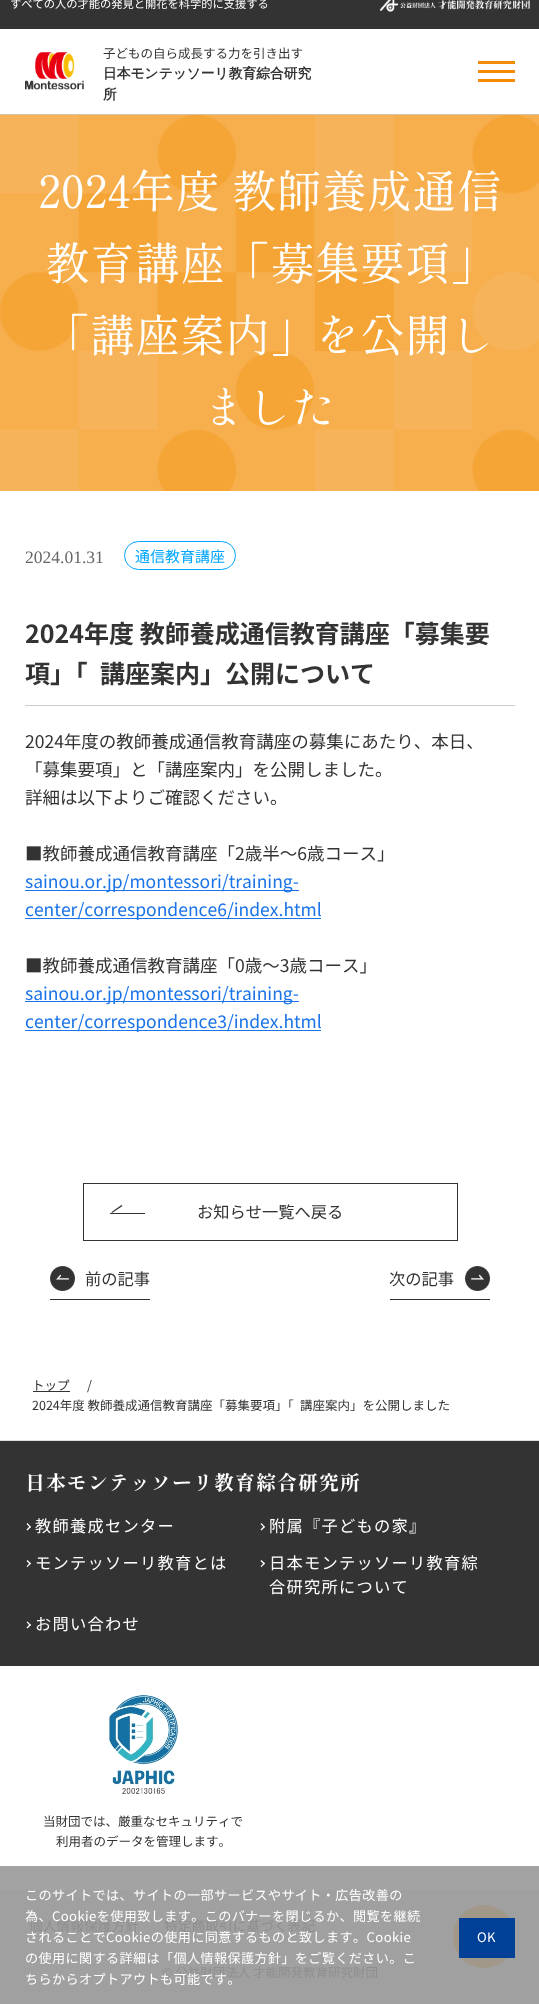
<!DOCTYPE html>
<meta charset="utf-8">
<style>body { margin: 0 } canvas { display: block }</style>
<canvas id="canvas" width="539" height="2004"></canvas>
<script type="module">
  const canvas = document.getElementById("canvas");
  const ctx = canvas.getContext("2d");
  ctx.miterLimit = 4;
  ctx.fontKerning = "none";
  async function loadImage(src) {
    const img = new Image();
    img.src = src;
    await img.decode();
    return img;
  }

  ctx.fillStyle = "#ffffff";
  ctx.fillRect(0, 0, 539, 2004);
  ctx.fillStyle = "#a3a3a3";
  ctx.fillRect(0, 1866, 539, 24);
  ctx.fillStyle = "#333333";
  ctx.fillRect(0, 0, 539, 29);
  ctx.font = "11.25px Noto Sans JP";
  ctx.fillStyle = "#ffffff";
  ctx.fillText("すべての人の才能の発見と開花を科学的に支援する", 10, 8);
  ctx.drawImage(await loadImage("img1.png"), 380, 0, 150, 12);
  ctx.drawImage(await loadImage("img2.png"), 25, 52, 59, 38);
  ctx.font = "12.5px Noto Sans JP";
  ctx.fillStyle = "#333333";
  ctx.fillText("子どもの自ら成長する力を引き出す", 103, 58);
  ctx.font = "bold 13.75px WenQuanYi Zen Hei";
  ctx.fillText("日本モンテッソーリ教育綜合研究", 103, 78);
  ctx.fillText("所", 103, 99);
  ctx.fillStyle = "#f38b03";
  ctx.fillRect(478, 70, 37, 3);
  ctx.fillRect(478, 61, 37, 3);
  ctx.fillRect(478, 79, 37, 3);
  ctx.fillStyle = "#cccccc";
  ctx.fillRect(0, 114, 539, 1);
  ctx.drawImage(await loadImage("img3.png"), 0, 114, 539, 377);
  ctx.font = "45px 'Shippori Mincho B1'";
  ctx.fillStyle = "#ffffff";
  ctx.fillText("2024年度 教師養成通信", 38, 208);
  ctx.fillText("教育講座「募集要項」", 45, 280);
  ctx.fillText("「講座案内」を公開し", 45, 352);
  ctx.fillText("ました", 202, 424);
  ctx.font = "17.5px Liberation Serif";
  ctx.fillStyle = "#666666";
  ctx.fillText("2024.01.31", 25, 563);
  ctx.beginPath();
  ctx.roundRect(124.5, 541.5, 111, 28, 14);
  ctx.strokeStyle = "#00a6ff";
  ctx.stroke();
  ctx.font = "15px Noto Sans JP";
  ctx.fillStyle = "#00a6ff";
  ctx.fillText("通信教育講座", 135, 562);
  ctx.fillStyle = "#cccccc";
  ctx.fillRect(25, 705, 490, 1);
  ctx.font = "bold 25px Noto Sans JP";
  ctx.fillStyle = "#333333";
  ctx.fillText("2024年度 教師養成通信教育講座「募集要", 25, 643);
  ctx.fillText("項」「", 25, 683);
  ctx.fillText("講座案内」公開について", 100, 683);
  ctx.font = "17.5px Noto Sans JP";
  ctx.fillText("2024年度の教師養成通信教育講座の募集にあたり、本日、", 25, 748);
  ctx.fillText("「募集要項」と「講座案内」を公開しました。", 25, 776);
  ctx.fillText("詳細は以下よりご確認ください。", 25, 804);
  ctx.fillText("■教師養成通信教育講座「2歳半～6歳コース」", 25, 860);
  ctx.fillStyle = "#1a73e8";
  ctx.fillRect(25, 890, 274, 1);
  ctx.fillText("sainou.or.jp/montessori/training-", 25, 888);
  ctx.fillRect(25, 918, 296, 1);
  ctx.fillText("center/correspondence6/index.html", 25, 916);
  ctx.fillStyle = "#333333";
  ctx.fillText("■教師養成通信教育講座「0歳～3歳コース」", 25, 972);
  ctx.fillStyle = "#1a73e8";
  ctx.fillRect(25, 1001, 274, 1);
  ctx.fillText("sainou.or.jp/montessori/training-", 25, 1000);
  ctx.fillRect(25, 1030, 296, 1);
  ctx.fillText("center/correspondence3/index.html", 25, 1028);
  ctx.strokeStyle = "#333333";
  ctx.strokeRect(83.5, 1183.5, 374, 57);
  ctx.fillStyle = "#333333";
  ctx.beginPath();
  ctx.moveTo(122.5, 1206);
  ctx.lineTo(112, 1213);
  ctx.lineTo(111.5, 1212);
  ctx.lineTo(121.5, 1205);
  ctx.closePath();
  ctx.fill();
  ctx.font = "16.25px Noto Sans JP";
  ctx.fillText("お知らせ一覧へ戻る", 197, 1218);
  ctx.fillRect(110, 1213, 35, 1);
  ctx.fillRect(50, 1299, 100, 1);
  ctx.drawImage(await loadImage("img4.png"), 50, 1266, 25, 25);
  ctx.fillText("前の記事", 85, 1285);
  ctx.fillRect(390, 1299, 100, 1);
  ctx.fillText("次の記事", 389, 1285);
  ctx.drawImage(await loadImage("img5.png"), 465, 1266, 25, 25);
  ctx.font = "12.5px Noto Sans JP";
  ctx.fillText("トップ", 32, 1390);
  ctx.fillRect(33, 1391, 37, 1);
  ctx.fillText("/", 87, 1390);
  ctx.fillText("2024年度 教師養成通信教育講座「募集要項」「", 32, 1410);
  ctx.fillText("講座案内」を公開しました", 300, 1410);
  ctx.fillStyle = "#dddddd";
  ctx.fillRect(0, 1440, 539, 1);
  ctx.fillStyle = "#333333";
  ctx.fillRect(0, 1441, 539, 225);
  ctx.letterSpacing = "1px";
  ctx.font = "bold 20px 'Shippori Mincho B1'";
  ctx.fillStyle = "#ffffff";
  ctx.fillText("日本モンテッソーリ教育綜合研究所", 25, 1490);
  ctx.beginPath();
  ctx.moveTo(26.5, 1524);
  ctx.lineTo(27.5, 1523);
  ctx.lineTo(31, 1527);
  ctx.lineTo(30, 1527.5);
  ctx.closePath();
  ctx.fill();
  ctx.beginPath();
  ctx.moveTo(26.5, 1529.5);
  ctx.lineTo(30, 1526);
  ctx.lineTo(31, 1527);
  ctx.lineTo(27.5, 1530.5);
  ctx.closePath();
  ctx.fill();
  ctx.letterSpacing = "1.25px";
  ctx.font = "16.25px Noto Sans JP";
  ctx.fillText("教師養成センター", 35, 1532);
  ctx.beginPath();
  ctx.moveTo(260.5, 1524);
  ctx.lineTo(261.5, 1523);
  ctx.lineTo(265, 1527);
  ctx.lineTo(264, 1527.5);
  ctx.closePath();
  ctx.fill();
  ctx.beginPath();
  ctx.moveTo(260.5, 1529.5);
  ctx.lineTo(264, 1526);
  ctx.lineTo(265, 1527);
  ctx.lineTo(261.5, 1530.5);
  ctx.closePath();
  ctx.fill();
  ctx.fillText("附属『子どもの家』", 269, 1532);
  ctx.beginPath();
  ctx.moveTo(26.5, 1561);
  ctx.lineTo(27.5, 1560);
  ctx.lineTo(31, 1563.5);
  ctx.lineTo(30, 1564.5);
  ctx.closePath();
  ctx.fill();
  ctx.beginPath();
  ctx.moveTo(26.5, 1566.5);
  ctx.lineTo(30, 1562.5);
  ctx.lineTo(31, 1563.5);
  ctx.lineTo(27.5, 1567);
  ctx.closePath();
  ctx.fill();
  ctx.fillText("モンテッソーリ教育とは", 35, 1569);
  ctx.beginPath();
  ctx.moveTo(260.5, 1561);
  ctx.lineTo(261.5, 1560);
  ctx.lineTo(265, 1563.5);
  ctx.lineTo(264, 1564.5);
  ctx.closePath();
  ctx.fill();
  ctx.beginPath();
  ctx.moveTo(260.5, 1566.5);
  ctx.lineTo(264, 1562.5);
  ctx.lineTo(265, 1563.5);
  ctx.lineTo(261.5, 1567);
  ctx.closePath();
  ctx.fill();
  ctx.fillText("日本モンテッソーリ教育綜", 269, 1569);
  ctx.fillText("合研究所について", 269, 1593);
  ctx.beginPath();
  ctx.moveTo(26.5, 1622);
  ctx.lineTo(27.5, 1621.5);
  ctx.lineTo(31, 1625);
  ctx.lineTo(30, 1626);
  ctx.closePath();
  ctx.fill();
  ctx.beginPath();
  ctx.moveTo(26.5, 1627.5);
  ctx.lineTo(30, 1624);
  ctx.lineTo(31, 1625);
  ctx.lineTo(27.5, 1628.5);
  ctx.closePath();
  ctx.fill();
  ctx.fillText("お問い合わせ", 35, 1630);
  ctx.drawImage(await loadImage("img6.png"), 109, 1695, 70, 99);
  ctx.letterSpacing = "0px";
  ctx.font = "12.5px Noto Sans JP";
  ctx.fillStyle = "#333333";
  ctx.fillText("当財団では、厳重なセキュリティで", 43, 1826);
  ctx.fillText("利用者のデータを管理します。", 56, 1846);
  ctx.fillStyle = "#a0a0a0";
  ctx.fillRect(0, 1890, 539, 114);
  ctx.font = "13.75px Noto Sans JP";
  ctx.fillStyle = "#8f8f8f";
  ctx.fillText("個人情報保護方針", 29, 1931);
  ctx.fillText("特定商取引に基づく表記", 164, 1931);
  ctx.font = "12.5px Noto Sans JP";
  ctx.fillText("© 公益財団法人 才能開発教育研究財団", 162, 1977);
  ctx.fillStyle = "#a2988a";
  ctx.beginPath();
  ctx.roundRect(453, 1905, 62, 63, 31);
  ctx.fill();
  ctx.letterSpacing = "0.4px";
  ctx.font = "13.1px Noto Sans JP";
  ctx.fillStyle = "#ffffff";
  ctx.fillText("このサイトでは、サイトの一部サービスやサイト・広告改善の", 25, 1900);
  ctx.fillText("為、Cookieを使用致します。このバナーを閉じるか、閲覧を継続", 25, 1921);
  ctx.fillText("されることでCookieの使用に同意するものと致します。Cookie", 25, 1942);
  ctx.fillText("の使用に関する詳細は「個人情報保護方針」をご覧ください。こ", 25, 1963);
  ctx.fillText("ちらからオプトアウトも可能です。", 25, 1984);
  ctx.fillStyle = "#004097";
  ctx.fillRect(459, 1918, 56, 40);
  ctx.fillStyle = "#ffffff";
  ctx.fillText("OK", 477, 1942);
</script>
